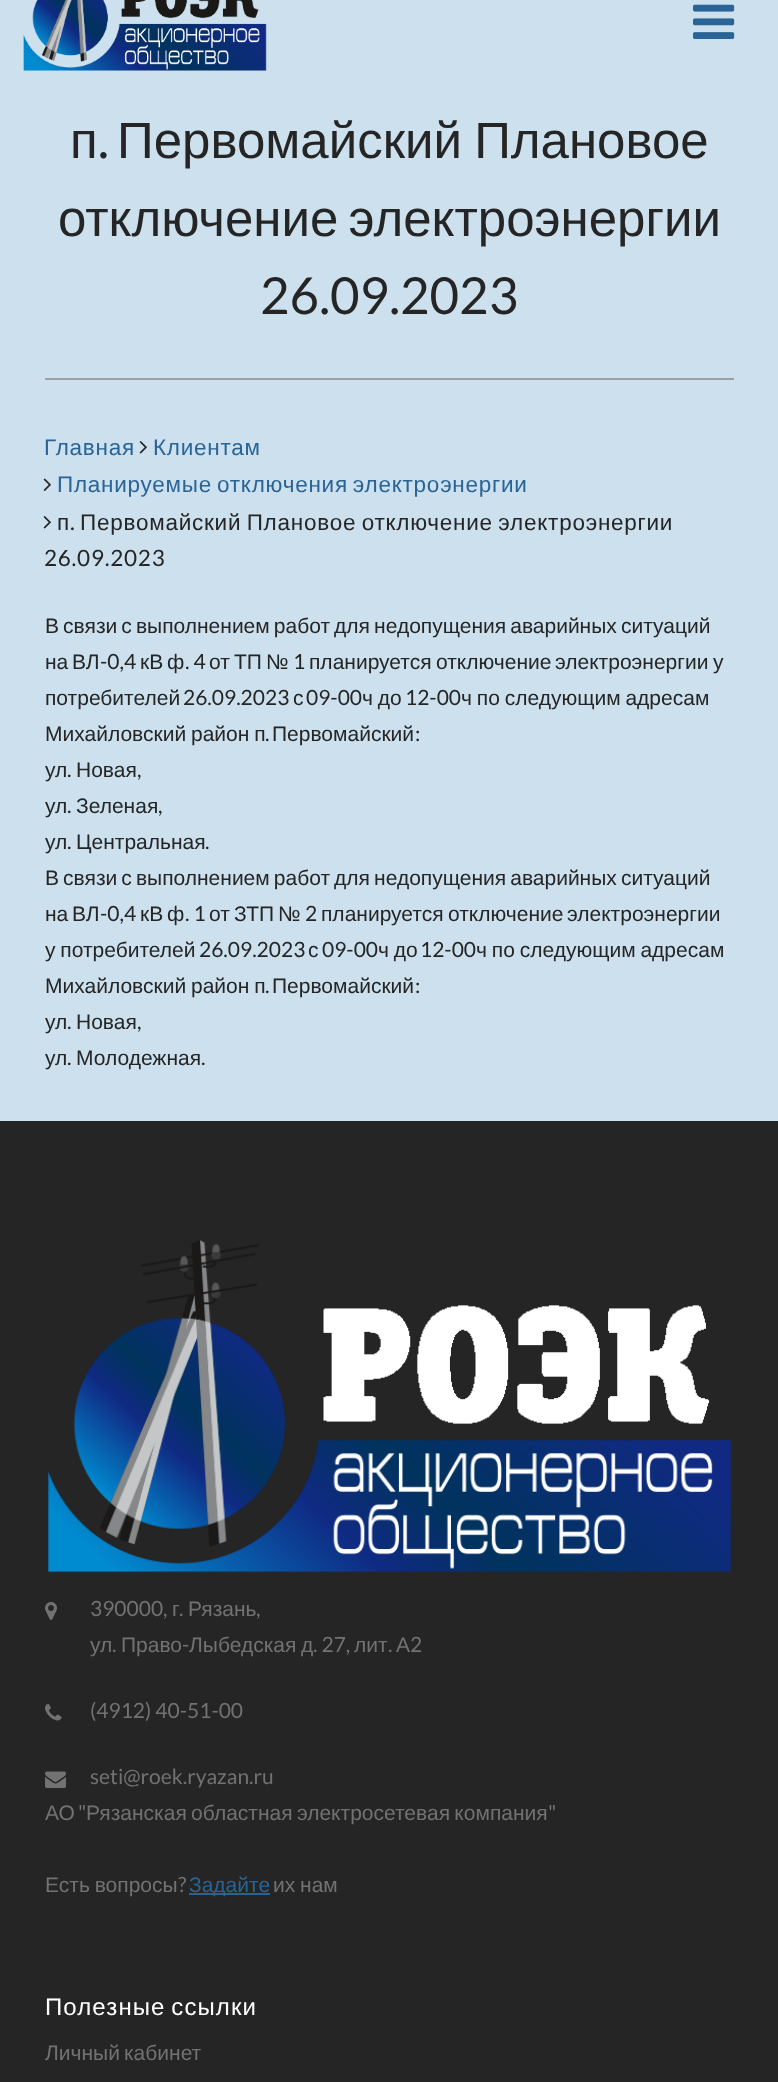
<!DOCTYPE html>
<meta charset="utf-8">
<style>body { margin: 0 } canvas { display: block }</style>
<canvas id="canvas" width="778" height="2082"></canvas>
<script type="module">
  const canvas = document.getElementById("canvas");
  const ctx = canvas.getContext("2d");
  ctx.miterLimit = 4;
  ctx.fontKerning = "normal";
  async function loadImage(src) {
    const img = new Image();
    img.src = src;
    await img.decode();
    return img;
  }

  ctx.fillStyle = "#cce0ee";
  ctx.fillRect(0, 0, 778, 2082);
  ctx.drawImage(await loadImage("img1.png"), 23, 0, 244, 71);
  ctx.drawImage(await loadImage("img2.png"), 693, 4, 42, 35);
  ctx.font = "51px Liberation Sans";
  ctx.fillStyle = "#252525";
  ctx.fillText("п", 70, 158);
  ctx.font = "51px Lato";
  ctx.fillText(".", 98, 158);
  ctx.wordSpacing = "-2px";
  ctx.font = "51px Liberation Sans";
  ctx.fillText("Первомайский Плановое", 117, 158);
  ctx.wordSpacing = "-4px";
  ctx.fillText("отключение электроэнергии", 58, 236);
  ctx.wordSpacing = "0px";
  ctx.font = "51px Lato";
  ctx.fillText("26.09.2023", 260, 314);
  ctx.fillStyle = "#9f9f9f";
  ctx.fillRect(45, 378, 689, 2);
  ctx.letterSpacing = "0.75px";
  ctx.font = "22.5px Liberation Sans";
  ctx.fillStyle = "#2a6496";
  ctx.fillText("Главная", 44, 455);
  ctx.drawImage(await loadImage("img3.png"), 139, 441, 8, 13);
  ctx.fillText("Клиентам", 153, 455);
  ctx.drawImage(await loadImage("img4.png"), 43, 478, 8, 13);
  ctx.wordSpacing = "-2px";
  ctx.fillText("Планируемые отключения электроэнергии", 57, 492);
  ctx.drawImage(await loadImage("img3.png"), 43, 516, 8, 13);
  ctx.wordSpacing = "0px";
  ctx.fillStyle = "#252525";
  ctx.fillText("п", 57, 530);
  ctx.font = "22.5px Lato";
  ctx.fillText(".", 70, 530);
  ctx.wordSpacing = "-1.5px";
  ctx.font = "22.5px Liberation Sans";
  ctx.fillText("Первомайский Плановое отключение электроэнергии", 80, 530);
  ctx.wordSpacing = "0px";
  ctx.font = "22.5px Lato";
  ctx.fillText("26.09.2023", 44, 566);
  ctx.letterSpacing = "0px";
  ctx.wordSpacing = "-1.75px";
  ctx.font = "21px Liberation Sans";
  ctx.fillText("В связи с выполнением работ для недопущения аварийных ситуаций", 45, 633);
  ctx.wordSpacing = "0px";
  ctx.fillText("на", 45, 669);
  ctx.fillText("ВЛ", 72, 669);
  ctx.font = "21px Lato";
  ctx.fillText("-0,4", 100, 669);
  ctx.font = "21px Liberation Sans";
  ctx.fillText("кВ", 140, 669);
  ctx.fillText("ф", 167, 669);
  ctx.font = "21px Lato";
  ctx.fillText(". 4", 185, 669);
  ctx.font = "21px Liberation Sans";
  ctx.fillText("от", 209, 669);
  ctx.fillText("ТП", 234, 669);
  ctx.fillText("№", 266, 669);
  ctx.font = "21px Lato";
  ctx.fillText("1", 293, 669);
  ctx.font = "21px Liberation Sans";
  ctx.fillText("планируется", 309, 669);
  ctx.fillText("отключение", 436, 669);
  ctx.fillText("электроэнергии", 555, 669);
  ctx.fillText("у", 713, 669);
  ctx.fillText("потребителей", 45, 705);
  ctx.font = "21px Lato";
  ctx.fillText("26.09.2023", 183, 705);
  ctx.font = "21px Liberation Sans";
  ctx.fillText("с", 293, 705);
  ctx.font = "21px Lato";
  ctx.fillText("09-00", 306, 705);
  ctx.wordSpacing = "-1px";
  ctx.font = "21px Liberation Sans";
  ctx.fillText("ч до", 362, 705);
  ctx.wordSpacing = "0px";
  ctx.font = "21px Lato";
  ctx.fillText("12-00", 405, 705);
  ctx.wordSpacing = "-1px";
  ctx.font = "21px Liberation Sans";
  ctx.fillText("ч по следующим адресам", 461, 705);
  ctx.fillText("Михайловский район п", 45, 741);
  ctx.wordSpacing = "0px";
  ctx.font = "21px Lato";
  ctx.fillText(".", 265, 741);
  ctx.font = "21px Liberation Sans";
  ctx.fillText("Первомайский", 272, 741);
  ctx.font = "21px Lato";
  ctx.fillText(":", 415, 741);
  ctx.font = "21px Liberation Sans";
  ctx.fillText("ул", 45, 777);
  ctx.font = "21px Lato";
  ctx.fillText(".", 67, 777);
  ctx.font = "21px Liberation Sans";
  ctx.fillText("Новая", 76, 777);
  ctx.font = "21px Lato";
  ctx.fillText(",", 137, 777);
  ctx.font = "21px Liberation Sans";
  ctx.fillText("ул", 45, 813);
  ctx.font = "21px Lato";
  ctx.fillText(".", 67, 813);
  ctx.font = "21px Liberation Sans";
  ctx.fillText("Зеленая", 76, 813);
  ctx.font = "21px Lato";
  ctx.fillText(",", 158, 813);
  ctx.font = "21px Liberation Sans";
  ctx.fillText("ул", 45, 849);
  ctx.font = "21px Lato";
  ctx.fillText(".", 67, 849);
  ctx.font = "21px Liberation Sans";
  ctx.fillText("Центральная", 76, 849);
  ctx.font = "21px Lato";
  ctx.fillText(".", 205, 849);
  ctx.wordSpacing = "-1.75px";
  ctx.font = "21px Liberation Sans";
  ctx.fillText("В связи с выполнением работ для недопущения аварийных ситуаций", 45, 885);
  ctx.wordSpacing = "0px";
  ctx.fillText("на", 45, 921);
  ctx.fillText("ВЛ", 72, 921);
  ctx.font = "21px Lato";
  ctx.fillText("-0,4", 100, 921);
  ctx.font = "21px Liberation Sans";
  ctx.fillText("кВ", 140, 921);
  ctx.fillText("ф", 167, 921);
  ctx.font = "21px Lato";
  ctx.fillText(". 1", 185, 921);
  ctx.font = "21px Liberation Sans";
  ctx.fillText("от", 209, 921);
  ctx.fillText("ЗТП", 234, 921);
  ctx.fillText("№", 278, 921);
  ctx.font = "21px Lato";
  ctx.fillText("2", 305, 921);
  ctx.font = "21px Liberation Sans";
  ctx.fillText("планируется", 321, 921);
  ctx.fillText("отключение", 448, 921);
  ctx.fillText("электроэнергии", 567, 921);
  ctx.wordSpacing = "-1px";
  ctx.fillText("у потребителей", 45, 957);
  ctx.wordSpacing = "0px";
  ctx.font = "21px Lato";
  ctx.fillText("26.09.2023", 199, 957);
  ctx.font = "21px Liberation Sans";
  ctx.fillText("с", 308, 957);
  ctx.font = "21px Lato";
  ctx.fillText("09-00", 322, 957);
  ctx.wordSpacing = "-1px";
  ctx.font = "21px Liberation Sans";
  ctx.fillText("ч до", 378, 957);
  ctx.wordSpacing = "0px";
  ctx.font = "21px Lato";
  ctx.fillText("12-00", 420, 957);
  ctx.wordSpacing = "-1px";
  ctx.font = "21px Liberation Sans";
  ctx.fillText("ч по следующим адресам", 476, 957);
  ctx.fillText("Михайловский район п", 45, 993);
  ctx.wordSpacing = "0px";
  ctx.font = "21px Lato";
  ctx.fillText(".", 265, 993);
  ctx.font = "21px Liberation Sans";
  ctx.fillText("Первомайский", 272, 993);
  ctx.font = "21px Lato";
  ctx.fillText(":", 415, 993);
  ctx.font = "21px Liberation Sans";
  ctx.fillText("ул", 45, 1029);
  ctx.font = "21px Lato";
  ctx.fillText(".", 67, 1029);
  ctx.font = "21px Liberation Sans";
  ctx.fillText("Новая", 76, 1029);
  ctx.font = "21px Lato";
  ctx.fillText(",", 137, 1029);
  ctx.font = "21px Liberation Sans";
  ctx.fillText("ул", 45, 1065);
  ctx.font = "21px Lato";
  ctx.fillText(".", 67, 1065);
  ctx.font = "21px Liberation Sans";
  ctx.fillText("Молодежная", 76, 1065);
  ctx.font = "21px Lato";
  ctx.fillText(".", 201, 1065);
  ctx.fillRect(0, 1121, 778, 961);
  ctx.drawImage(await loadImage("img5.png"), 48, 1240, 684, 333);
  ctx.drawImage(await loadImage("img6.png"), 45, 1602, 12, 18);
  ctx.fillStyle = "#727272";
  ctx.fillText("390000,", 90, 1616);
  ctx.font = "21px Liberation Sans";
  ctx.fillText("г", 172, 1616);
  ctx.font = "21px Lato";
  ctx.fillText(".", 179, 1616);
  ctx.font = "21px Liberation Sans";
  ctx.fillText("Рязань", 188, 1616);
  ctx.font = "21px Lato";
  ctx.fillText(",", 256, 1616);
  ctx.font = "21px Liberation Sans";
  ctx.fillText("ул", 90, 1652);
  ctx.fillText("Право", 121, 1652);
  ctx.font = "21px Lato";
  ctx.fillText("-", 182, 1652);
  ctx.font = "21px Liberation Sans";
  ctx.fillText("Лыбедская", 189, 1652);
  ctx.fillText("д", 301, 1652);
  ctx.font = "21px Lato";
  ctx.fillText(". 27,", 313, 1652);
  ctx.font = "21px Liberation Sans";
  ctx.fillText("лит", 354, 1652);
  ctx.fillText("А", 396, 1652);
  ctx.font = "21px Lato";
  ctx.fillText("2", 410, 1652);
  ctx.fillText(".", 112, 1652);
  ctx.fillText(".", 388, 1652);
  ctx.drawImage(await loadImage("img7.png"), 45, 1704, 17, 17);
  ctx.fillText("(4912) 40-51-00", 90, 1718);
  ctx.drawImage(await loadImage("img8.png"), 45, 1771, 21, 17);
  ctx.fillText("seti@roek.ryazan.ru", 90, 1784);
  ctx.font = "21px Liberation Sans";
  ctx.fillText("АО", 45, 1820);
  ctx.font = "21px Lato";
  ctx.fillText("\"", 78, 1820);
  ctx.wordSpacing = "-1.5px";
  ctx.font = "21px Liberation Sans";
  ctx.fillText("Рязанская областная электросетевая компания", 86, 1820);
  ctx.wordSpacing = "0px";
  ctx.font = "21px Lato";
  ctx.fillText("\"", 548, 1820);
  ctx.wordSpacing = "-1px";
  ctx.font = "21px Liberation Sans";
  ctx.fillText("Есть вопросы", 45, 1892);
  ctx.wordSpacing = "0px";
  ctx.font = "21px Lato";
  ctx.fillText("?", 178, 1892);
  ctx.fillStyle = "#2a6496";
  ctx.fillRect(189, 1893, 81, 2);
  ctx.font = "21px Liberation Sans";
  ctx.fillText("Задайте", 189, 1892);
  ctx.wordSpacing = "-1px";
  ctx.fillStyle = "#727272";
  ctx.fillText("их нам", 273, 1892);
  ctx.letterSpacing = "1.1px";
  ctx.wordSpacing = "-2px";
  ctx.font = "24px Liberation Sans";
  ctx.fillStyle = "#ffffff";
  ctx.fillText("Полезные ссылки", 45, 2015);
  ctx.letterSpacing = "0px";
  ctx.wordSpacing = "-1.75px";
  ctx.font = "21px Liberation Sans";
  ctx.fillStyle = "#727272";
  ctx.fillText("Личный кабинет", 45, 2060);
</script>
